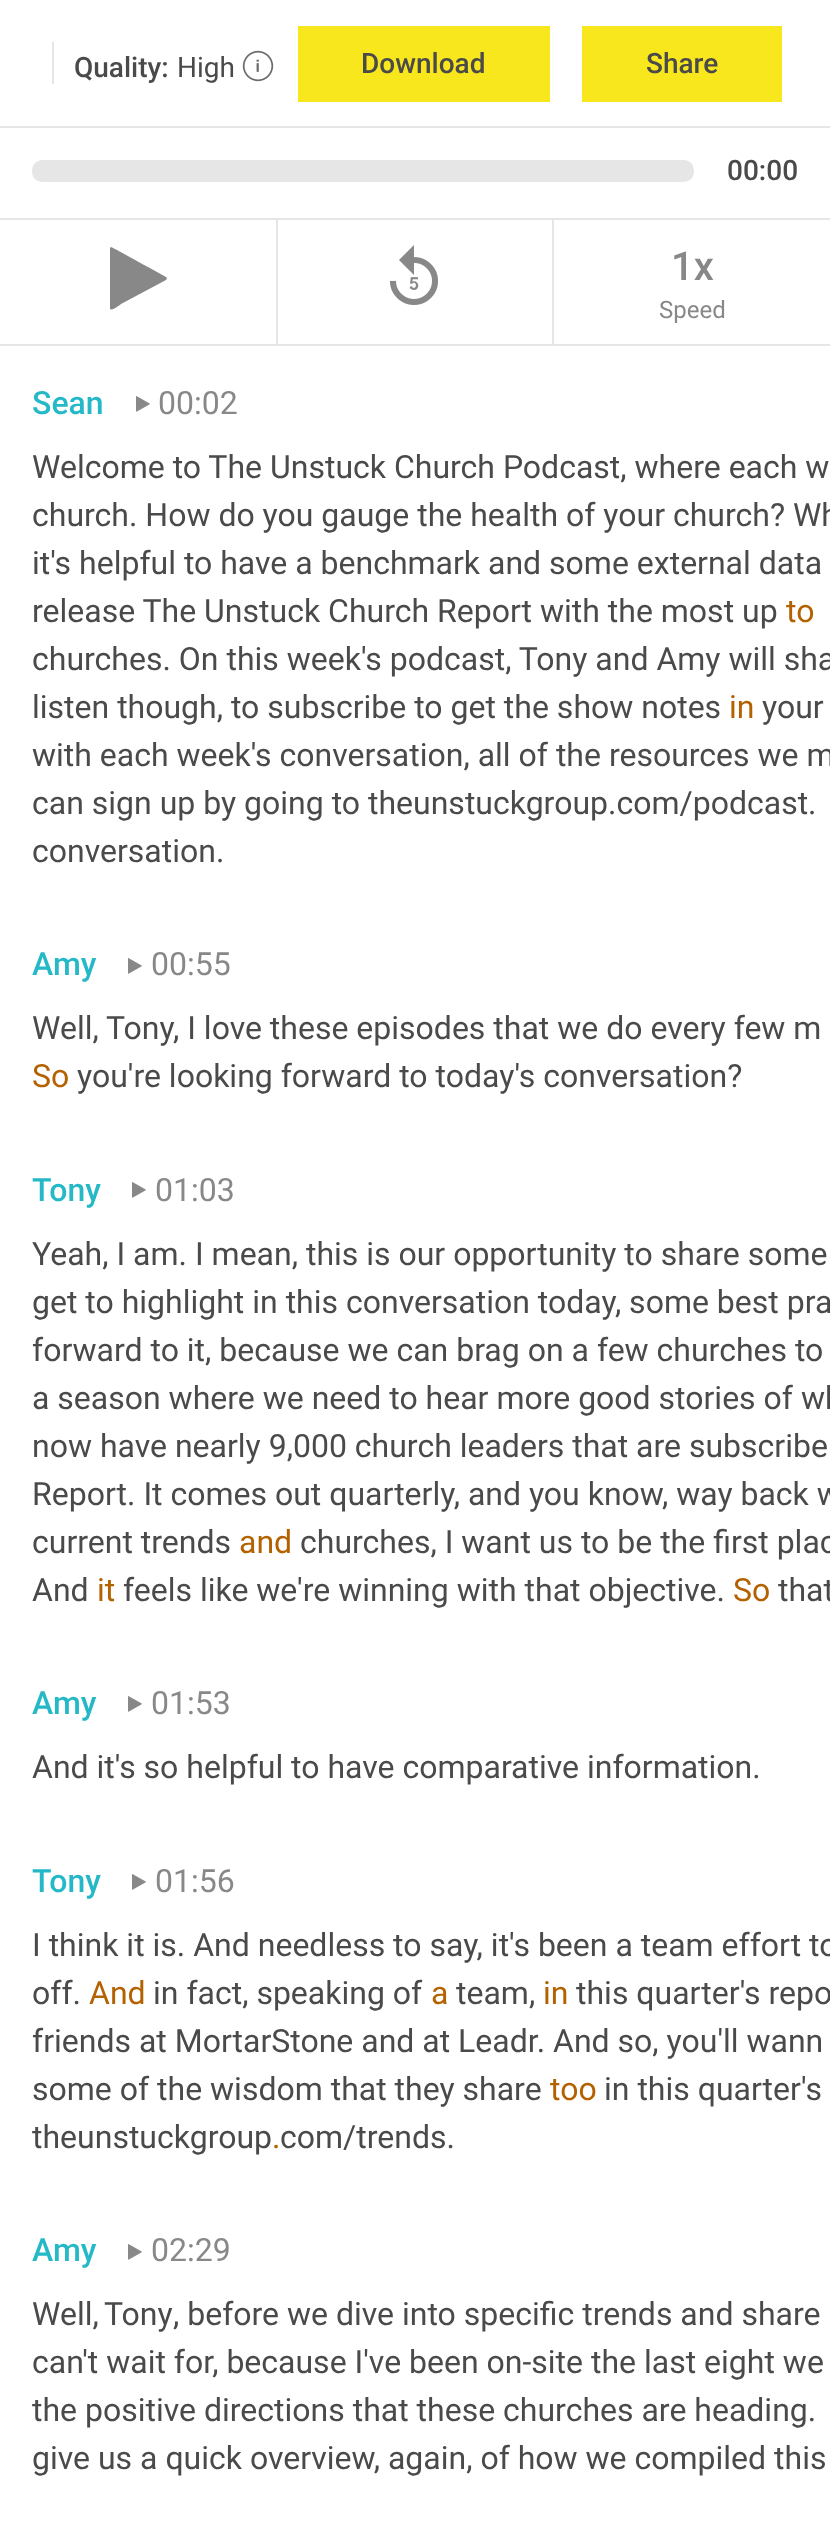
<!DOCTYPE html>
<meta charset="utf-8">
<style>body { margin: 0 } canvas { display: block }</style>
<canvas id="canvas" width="830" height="2548"></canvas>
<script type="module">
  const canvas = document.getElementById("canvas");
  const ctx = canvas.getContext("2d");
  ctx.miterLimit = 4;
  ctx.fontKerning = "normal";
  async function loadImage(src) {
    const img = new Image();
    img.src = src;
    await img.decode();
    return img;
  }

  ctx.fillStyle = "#ffffff";
  ctx.fillRect(0, 0, 830, 2548);
  ctx.fillStyle = "#e6e6e6";
  ctx.fillRect(0, 126, 830, 2);
  ctx.fillRect(52, 42, 2, 42);
  ctx.font = "500 28px Roboto";
  ctx.fillStyle = "#4a4a4a";
  ctx.fillText("Quality:", 74, 77);
  ctx.font = "28px Roboto";
  ctx.fillText("High", 177, 77);
  ctx.drawImage(await loadImage("img1.png"), 242, 50, 32, 32);
  ctx.fillStyle = "#f8e71c";
  ctx.fillRect(298, 26, 252, 76);
  ctx.font = "500 28px Roboto";
  ctx.fillStyle = "#4a4a4a";
  ctx.fillText("Download", 361, 73);
  ctx.fillStyle = "#f8e71c";
  ctx.fillRect(582, 26, 200, 76);
  ctx.fillStyle = "#4a4a4a";
  ctx.fillText("Share", 646, 73);
  ctx.fillStyle = "#e6e6e6";
  ctx.beginPath();
  ctx.roundRect(32, 160, 662, 22, 10);
  ctx.fill();
  ctx.fillStyle = "#4a4a4a";
  ctx.fillText("00:00", 727, 180);
  ctx.fillStyle = "#e6e6e6";
  ctx.fillRect(0, 218, 830, 2);
  ctx.fillRect(276, 218, 2, 128);
  ctx.fillRect(0, 344, 278, 2);
  ctx.fillStyle = "#888888";
  ctx.beginPath();
  ctx.moveTo(166, 280);
  ctx.lineTo(121, 304);
  ctx.bezierCurveTo(120, 305, 112, 311, 110, 309);
  ctx.lineTo(110, 248);
  ctx.lineTo(111, 247);
  ctx.bezierCurveTo(112, 247, 144, 265, 148, 267);
  ctx.lineTo(166, 277);
  ctx.lineTo(167, 278);
  ctx.closePath();
  ctx.fill();
  ctx.fillStyle = "#e6e6e6";
  ctx.fillRect(552, 218, 2, 128);
  ctx.fillRect(278, 344, 552, 2);
  ctx.drawImage(await loadImage("img2.png"), 390, 245, 48, 60);
  ctx.font = "500 40px Roboto";
  ctx.fillStyle = "#888888";
  ctx.fillText("1x", 671, 280);
  ctx.font = "24px Roboto";
  ctx.fillText("Speed", 659, 318);
  ctx.font = "500 32px Roboto";
  ctx.fillStyle = "#25b9c8";
  ctx.fillText("Sean", 32, 414);
  ctx.drawImage(await loadImage("img3.png"), 136, 396, 14, 16);
  ctx.font = "32px Roboto";
  ctx.fillStyle = "#888888";
  ctx.fillText("00:02", 158, 414);
  ctx.fillStyle = "#4a4a4a";
  ctx.fillText("Welcome to The Unstuck Church Podcast, where each w", 32, 478);
  ctx.fillText("church. How do you gauge the health of your church? Wh", 32, 526);
  ctx.fillText("it's helpful to have a benchmark and some external data", 32, 574);
  ctx.fillText("release The Unstuck Church Report with the most up", 32, 622);
  ctx.fillStyle = "#b46100";
  ctx.fillText("to", 786, 622);
  ctx.fillStyle = "#4a4a4a";
  ctx.fillText("churches. On this week's podcast, Tony and Amy will sha", 32, 670);
  ctx.fillText("listen though, to subscribe to get the show notes", 32, 718);
  ctx.fillStyle = "#b46100";
  ctx.fillText("in", 729, 718);
  ctx.fillStyle = "#4a4a4a";
  ctx.fillText("your", 762, 718);
  ctx.fillText("with each week's conversation, all of the resources we m", 32, 766);
  ctx.fillText("can sign up by going to theunstuckgroup.com/podcast.", 32, 814);
  ctx.fillText("conversation.", 32, 862);
  ctx.font = "500 32px Roboto";
  ctx.fillStyle = "#25b9c8";
  ctx.fillText("Amy", 32, 975);
  ctx.drawImage(await loadImage("img3.png"), 128, 958, 14, 16);
  ctx.font = "32px Roboto";
  ctx.fillStyle = "#888888";
  ctx.fillText("00:55", 151, 975);
  ctx.fillStyle = "#4a4a4a";
  ctx.fillText("Well, Tony, I love these episodes that we do every few m", 32, 1039);
  ctx.fillStyle = "#b46100";
  ctx.fillText("So", 32, 1087);
  ctx.fillStyle = "#4a4a4a";
  ctx.fillText("you're looking forward to today's conversation?", 77, 1087);
  ctx.font = "500 32px Roboto";
  ctx.fillStyle = "#25b9c8";
  ctx.fillText("Tony", 32, 1201);
  ctx.drawImage(await loadImage("img3.png"), 132, 1182, 14, 16);
  ctx.font = "32px Roboto";
  ctx.fillStyle = "#888888";
  ctx.fillText("01:03", 155, 1201);
  ctx.fillStyle = "#4a4a4a";
  ctx.fillText("Yeah, I am. I mean, this is our opportunity to share some", 32, 1265);
  ctx.fillText("get to highlight in this conversation today, some best pra", 32, 1313);
  ctx.fillText("forward to it, because we can brag on a few churches to", 32, 1361);
  ctx.fillText("a season where we need to hear more good stories of wh", 32, 1409);
  ctx.fillText("now have nearly 9,000 church leaders that are subscribe", 32, 1457);
  ctx.fillText("Report. It comes out quarterly, and you know, way back w", 32, 1505);
  ctx.fillText("current trends", 32, 1553);
  ctx.fillStyle = "#b46100";
  ctx.fillText("and", 239, 1553);
  ctx.fillStyle = "#4a4a4a";
  ctx.fillText("churches, I want us to be the first plac", 300, 1553);
  ctx.fillText("And", 32, 1601);
  ctx.fillStyle = "#b46100";
  ctx.fillText("it", 97, 1601);
  ctx.fillStyle = "#4a4a4a";
  ctx.fillText("feels like we're winning with that objective.", 123, 1601);
  ctx.fillStyle = "#b46100";
  ctx.fillText("So", 733, 1601);
  ctx.fillStyle = "#4a4a4a";
  ctx.fillText("that", 778, 1601);
  ctx.font = "500 32px Roboto";
  ctx.fillStyle = "#25b9c8";
  ctx.fillText("Amy", 32, 1714);
  ctx.drawImage(await loadImage("img3.png"), 128, 1696, 14, 16);
  ctx.font = "32px Roboto";
  ctx.fillStyle = "#888888";
  ctx.fillText("01:53", 151, 1714);
  ctx.fillStyle = "#4a4a4a";
  ctx.fillText("And it's so helpful to have comparative information.", 32, 1778);
  ctx.font = "500 32px Roboto";
  ctx.fillStyle = "#25b9c8";
  ctx.fillText("Tony", 32, 1892);
  ctx.drawImage(await loadImage("img3.png"), 132, 1874, 14, 16);
  ctx.font = "32px Roboto";
  ctx.fillStyle = "#888888";
  ctx.fillText("01:56", 155, 1892);
  ctx.fillStyle = "#4a4a4a";
  ctx.fillText("I think it is. And needless to say, it's been a team effort to", 32, 1956);
  ctx.fillText("off.", 32, 2004);
  ctx.fillStyle = "#b46100";
  ctx.fillText("And", 89, 2004);
  ctx.fillStyle = "#4a4a4a";
  ctx.fillText("in fact, speaking of", 153, 2004);
  ctx.fillStyle = "#b46100";
  ctx.fillText("a", 431, 2004);
  ctx.fillStyle = "#4a4a4a";
  ctx.fillText("team,", 456, 2004);
  ctx.fillStyle = "#b46100";
  ctx.fillText("in", 543, 2004);
  ctx.fillStyle = "#4a4a4a";
  ctx.fillText("this quarter's repo", 576, 2004);
  ctx.fillText("friends at MortarStone and at Leadr. And so, you'll wann", 32, 2052);
  ctx.fillText("some of the wisdom that they share", 32, 2100);
  ctx.fillStyle = "#b46100";
  ctx.fillText("too", 550, 2100);
  ctx.fillStyle = "#4a4a4a";
  ctx.fillText("in this quarter's", 604, 2100);
  ctx.fillText("theunstuckgroup", 32, 2148);
  ctx.fillStyle = "#b46100";
  ctx.fillText(".", 272, 2148);
  ctx.fillStyle = "#4a4a4a";
  ctx.fillText("com/trends.", 280, 2148);
  ctx.font = "500 32px Roboto";
  ctx.fillStyle = "#25b9c8";
  ctx.fillText("Amy", 32, 2261);
  ctx.drawImage(await loadImage("img3.png"), 128, 2244, 14, 16);
  ctx.font = "32px Roboto";
  ctx.fillStyle = "#888888";
  ctx.fillText("02:29", 151, 2261);
  ctx.wordSpacing = "-2px";
  ctx.fillStyle = "#4a4a4a";
  ctx.fillText("Well, Tony", 32, 2325);
  ctx.wordSpacing = "0px";
  ctx.fillText(", before we dive into specific trends and share", 173, 2325);
  ctx.fillText("can't wait for, because I've been on-site the last eight we", 32, 2373);
  ctx.fillText("the positive directions that these churches are heading.", 32, 2421);
  ctx.fillText("give us a quick overview, again, of how we compiled this", 32, 2469);
</script>
